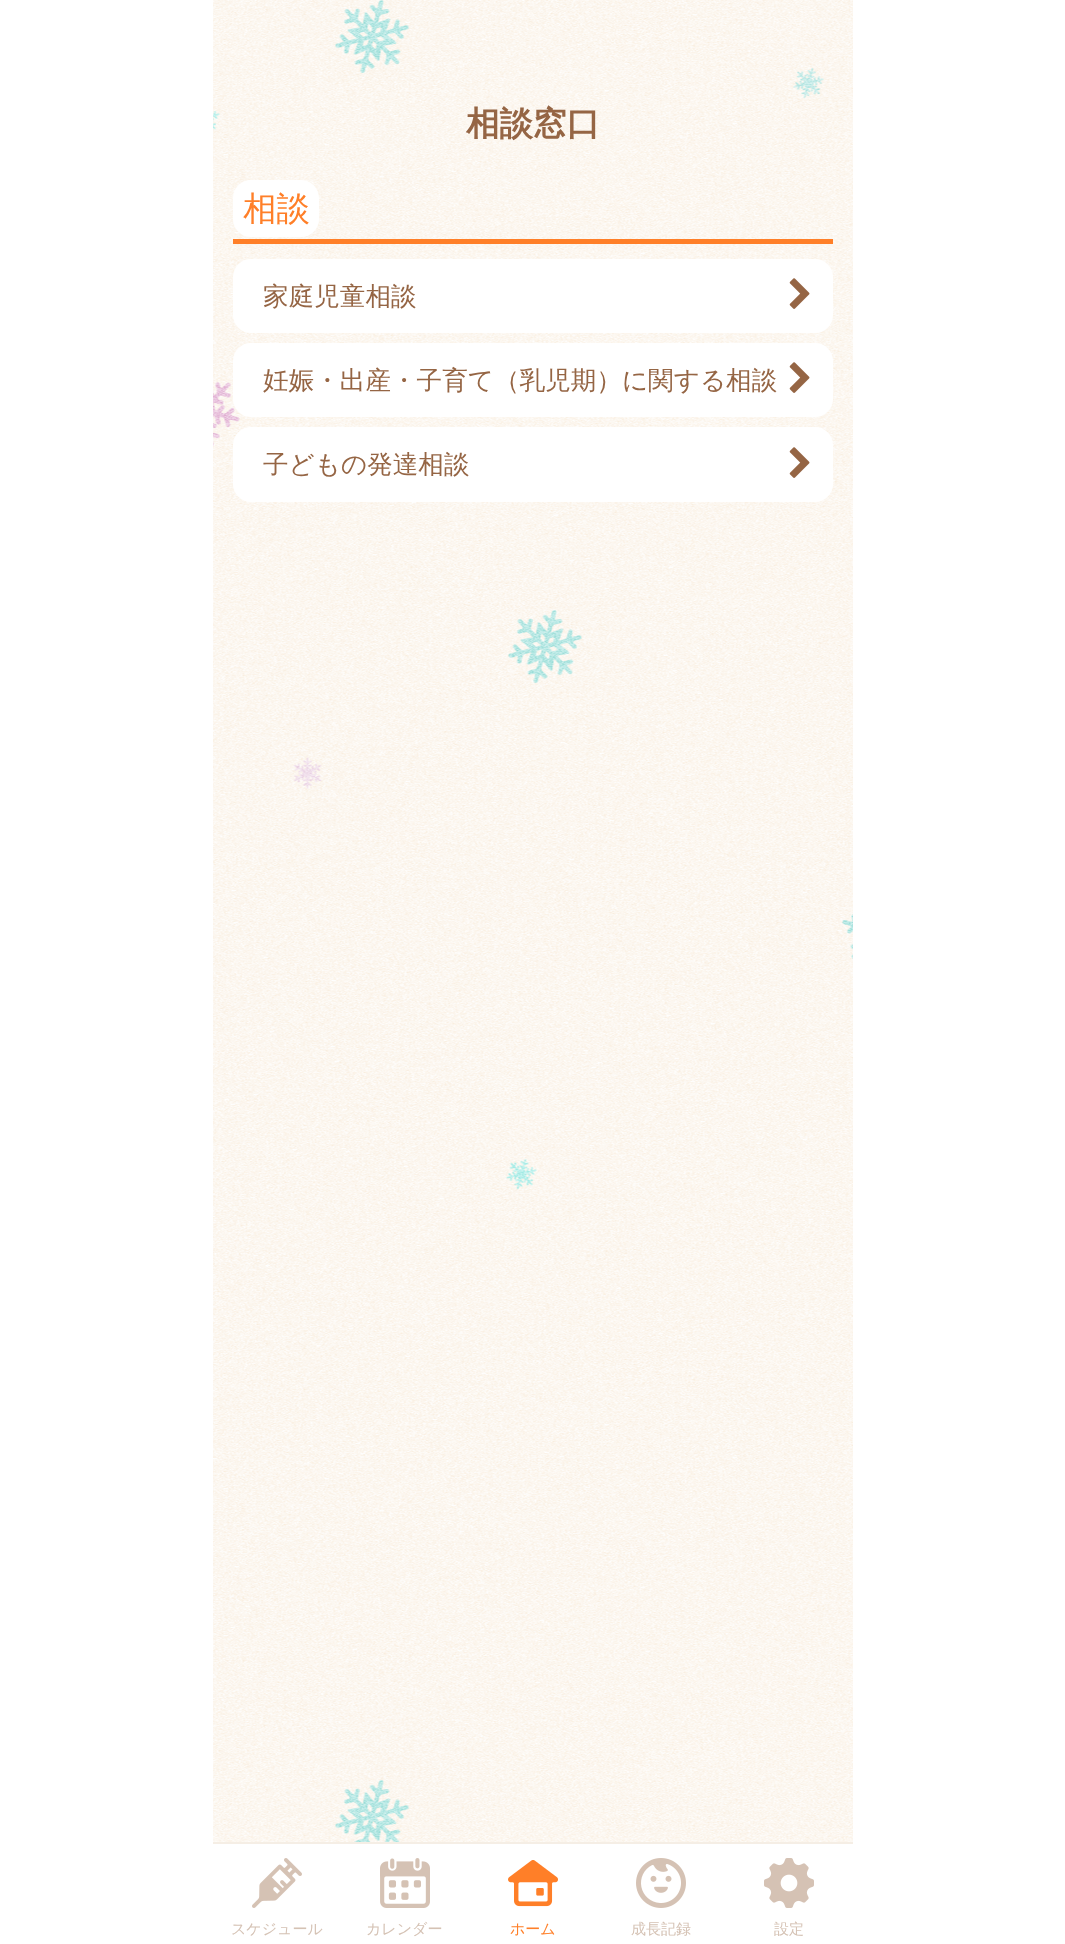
<!DOCTYPE html>
<meta charset="utf-8">
<style>body { margin: 0 } canvas { display: block }</style>
<canvas id="canvas" width="1065" height="1944"></canvas>
<script type="module">
  const canvas = document.getElementById("canvas");
  const ctx = canvas.getContext("2d");
  ctx.miterLimit = 4;
  ctx.fontKerning = "normal";
  async function loadImage(src) {
    const img = new Image();
    img.src = src;
    await img.decode();
    return img;
  }

  ctx.fillStyle = "#ffffff";
  ctx.fillRect(0, 0, 1065, 1944);
  ctx.drawImage(await loadImage("img1.png"), 213, 0, 640, 1842);
  ctx.font = "bold 33.5px WenQuanYi Zen Hei";
  ctx.fillStyle = "#956544";
  ctx.fillText("相談窓口", 466, 135);
  ctx.fillStyle = "#ff7f28";
  ctx.fillRect(233, 239, 600, 5);
  ctx.fillStyle = "#ffffff";
  ctx.beginPath();
  ctx.roundRect(233, 180, 86, 57, 18);
  ctx.fill();
  ctx.font = "500 33.5px WenQuanYi Zen Hei";
  ctx.fillStyle = "#ff7f28";
  ctx.fillText("相談", 243, 220);
  ctx.fillStyle = "#ffffff";
  ctx.beginPath();
  ctx.roundRect(233, 259, 600, 74, 18);
  ctx.fill();
  ctx.font = "500 25.6px WenQuanYi Zen Hei";
  ctx.fillStyle = "#956544";
  ctx.fillText("家庭児童相談", 263, 305);
  ctx.drawImage(await loadImage("img2.png"), 789, 278, 21, 31);
  ctx.fillStyle = "#ffffff";
  ctx.beginPath();
  ctx.roundRect(233, 343, 600, 74, 18);
  ctx.fill();
  ctx.fillStyle = "#956544";
  ctx.fillText("妊娠・出産・子育て（乳児期）に関する相談", 263, 389);
  ctx.drawImage(await loadImage("img2.png"), 789, 362, 21, 31);
  ctx.fillStyle = "#ffffff";
  ctx.beginPath();
  ctx.roundRect(233, 427, 600, 75, 18);
  ctx.fill();
  ctx.fillStyle = "#956544";
  ctx.fillText("子どもの発達相談", 263, 473);
  ctx.drawImage(await loadImage("img2.png"), 789, 447, 21, 31);
  ctx.fillStyle = "#f5eee5";
  ctx.fillRect(213, 1842, 640, 2);
  ctx.drawImage(await loadImage("img3.png"), 252, 1858, 50, 50);
  ctx.font = "500 15px WenQuanYi Zen Hei";
  ctx.fillStyle = "#d5c2b4";
  ctx.fillText("スケジュール", 231, 1934);
  ctx.drawImage(await loadImage("img4.png"), 380, 1858, 50, 50);
  ctx.fillText("カレンダー", 366, 1934);
  ctx.drawImage(await loadImage("img5.png"), 508, 1860, 50, 47);
  ctx.fillStyle = "#ff7f28";
  ctx.fillText("ホーム", 510, 1934);
  ctx.drawImage(await loadImage("img6.png"), 636, 1858, 50, 50);
  ctx.fillStyle = "#d5c2b4";
  ctx.fillText("成長記録", 631, 1934);
  ctx.drawImage(await loadImage("img7.png"), 764, 1858, 50, 50);
  ctx.fillText("設定", 774, 1934);
</script>
